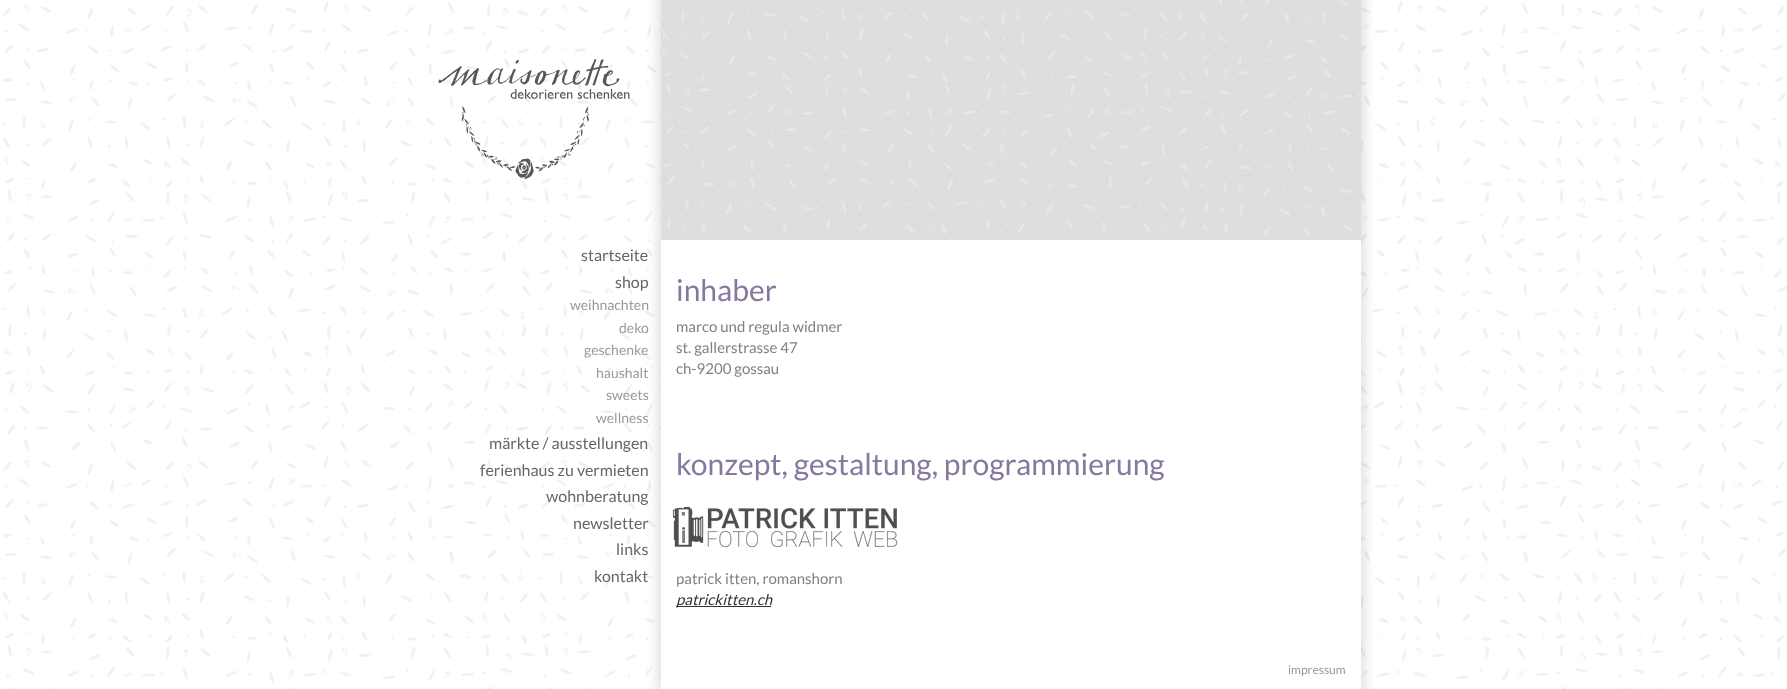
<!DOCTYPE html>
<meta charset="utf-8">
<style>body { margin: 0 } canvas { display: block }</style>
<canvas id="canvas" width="1787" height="689"></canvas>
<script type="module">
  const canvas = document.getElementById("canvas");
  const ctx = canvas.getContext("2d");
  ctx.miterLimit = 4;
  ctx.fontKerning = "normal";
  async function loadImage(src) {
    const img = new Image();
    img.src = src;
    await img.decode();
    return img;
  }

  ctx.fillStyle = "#ffffff";
  ctx.fillRect(0, 0, 1787, 689);
  ctx.drawImage(await loadImage("img1.png"), 2, 1, 1785, 688);
  ctx.drawImage(await loadImage("img2.png"), 438, 59, 192, 120);
  ctx.font = "16px Lato";
  ctx.fillStyle = "#666666";
  ctx.fillText("startseite", 581, 261);
  ctx.fillText("shop", 615, 288);
  ctx.font = "14px Lato";
  ctx.fillStyle = "#999999";
  ctx.fillText("weihnachten", 570, 310);
  ctx.fillText("deko", 619, 333);
  ctx.fillText("geschenke", 584, 355);
  ctx.fillText("haushalt", 596, 378);
  ctx.fillText("sweets", 606, 400);
  ctx.fillText("wellness", 596, 423);
  ctx.font = "16px Lato";
  ctx.fillStyle = "#666666";
  ctx.fillText("märkte / ausstellungen", 489, 449);
  ctx.fillText("ferienhaus zu vermieten", 480, 476);
  ctx.fillText("wohnberatung", 546, 502);
  ctx.fillText("newsletter", 573, 529);
  ctx.fillText("links", 616, 555);
  ctx.fillText("kontakt", 594, 582);
  ctx.fillStyle = "rgba(0, 0, 0, 0.1)";
  ctx.filter = "blur(5px)";
  ctx.beginPath();
  ctx.rect(656, -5, 710, 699);
  ctx.fill();
  ctx.filter = "none";
  ctx.fillStyle = "#ffffff";
  ctx.fillRect(661, 240, 700, 449);
  ctx.drawImage(await loadImage("img3.png"), 661, 0, 700, 240);
  ctx.font = "30px Lato";
  ctx.fillStyle = "#86789f";
  ctx.fillText("inhaber", 676, 301);
  ctx.font = "15px Lato";
  ctx.fillStyle = "#808080";
  ctx.fillText("marco und regula widmer", 676, 332);
  ctx.fillText("st. gallerstrasse 47", 676, 353);
  ctx.fillText("ch-9200 gossau", 676, 374);
  ctx.font = "30px Lato";
  ctx.fillStyle = "#86789f";
  ctx.fillText("konzept, gestaltung, programmierung", 676, 475);
  ctx.drawImage(await loadImage("img4.png"), 672, 507, 226, 40);
  ctx.font = "15px Lato";
  ctx.fillStyle = "#808080";
  ctx.fillText("patrick itten, romanshorn", 676, 584);
  ctx.fillStyle = "#333333";
  ctx.fillRect(676, 606, 95, 1);
  ctx.font = "italic 15px Lato";
  ctx.fillText("patrickitten.ch", 676, 605);
  ctx.font = "12px Lato";
  ctx.fillStyle = "#999999";
  ctx.fillText("impressum", 1288, 674);
</script>
